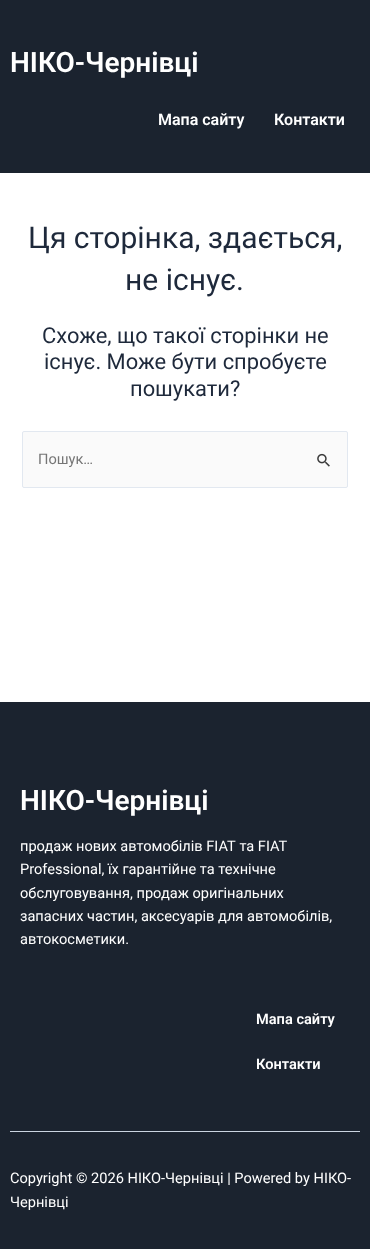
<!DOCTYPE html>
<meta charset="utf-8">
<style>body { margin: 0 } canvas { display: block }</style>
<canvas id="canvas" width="370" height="1249"></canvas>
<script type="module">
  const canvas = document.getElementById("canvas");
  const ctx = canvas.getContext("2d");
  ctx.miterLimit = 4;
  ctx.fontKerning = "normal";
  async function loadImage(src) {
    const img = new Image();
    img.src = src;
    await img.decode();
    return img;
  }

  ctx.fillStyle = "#ffffff";
  ctx.fillRect(0, 0, 370, 1249);
  ctx.fillStyle = "#1b232f";
  ctx.fillRect(0, 0, 370, 173);
  ctx.font = "600 28px Roboto";
  ctx.fillStyle = "#ffffff";
  ctx.fillText("НІКО-Чернівці", 10, 72);
  ctx.font = "600 16px Roboto";
  ctx.fillText("Мапа сайту", 158, 125);
  ctx.fillText("Контакти", 274, 125);
  ctx.font = "30px Roboto";
  ctx.fillStyle = "#1e293b";
  ctx.fillText("Ця сторінка, здається,", 28, 248);
  ctx.fillText("не існує.", 125, 290);
  ctx.font = "21.9px Roboto";
  ctx.fillText("Схоже, що такої сторінки не", 42, 343);
  ctx.fillText("існує. Може бути спробуєте", 44, 369);
  ctx.fillText("пошукати?", 130, 396);
  ctx.fillStyle = "#fafafa";
  ctx.beginPath();
  ctx.roundRect(22.5, 431.5, 325, 56, 1.5);
  ctx.fill();
  ctx.strokeStyle = "#e2e8f0";
  ctx.stroke();
  ctx.font = "14.6px Roboto";
  ctx.fillStyle = "#757575";
  ctx.fillText("Пошук…", 38, 464);
  ctx.drawImage(await loadImage("img1.png"), 317, 453, 13, 14);
  ctx.fillStyle = "#1b232f";
  ctx.fillRect(0, 702, 370, 547);
  ctx.font = "600 28px Roboto";
  ctx.fillStyle = "#ffffff";
  ctx.fillText("НІКО-Чернівці", 20, 810);
  ctx.font = "14.6px Roboto";
  ctx.fillText("продаж нових автомобілів FIAT та FIAT", 20, 851);
  ctx.fillText("Professional, їх гарантійне та технічне", 20, 874);
  ctx.fillText("обслуговування, продаж оригінальних", 20, 898);
  ctx.fillText("запасних частин, аксесуарів для автомобілів,", 20, 921);
  ctx.fillText("автокосметики.", 20, 944);
  ctx.font = "600 14.6px Roboto";
  ctx.fillText("Мапа сайту", 256, 1024);
  ctx.fillText("Контакти", 256, 1069);
  ctx.fillStyle = "#cbd5e1";
  ctx.fillRect(10, 1131, 350, 1);
  ctx.font = "14.6px Roboto";
  ctx.fillStyle = "#ffffff";
  ctx.fillText("Copyright © 2026 НІКО-Чернівці | Powered by НІКО-", 10, 1183);
  ctx.fillText("Чернівці", 10, 1207);
</script>
